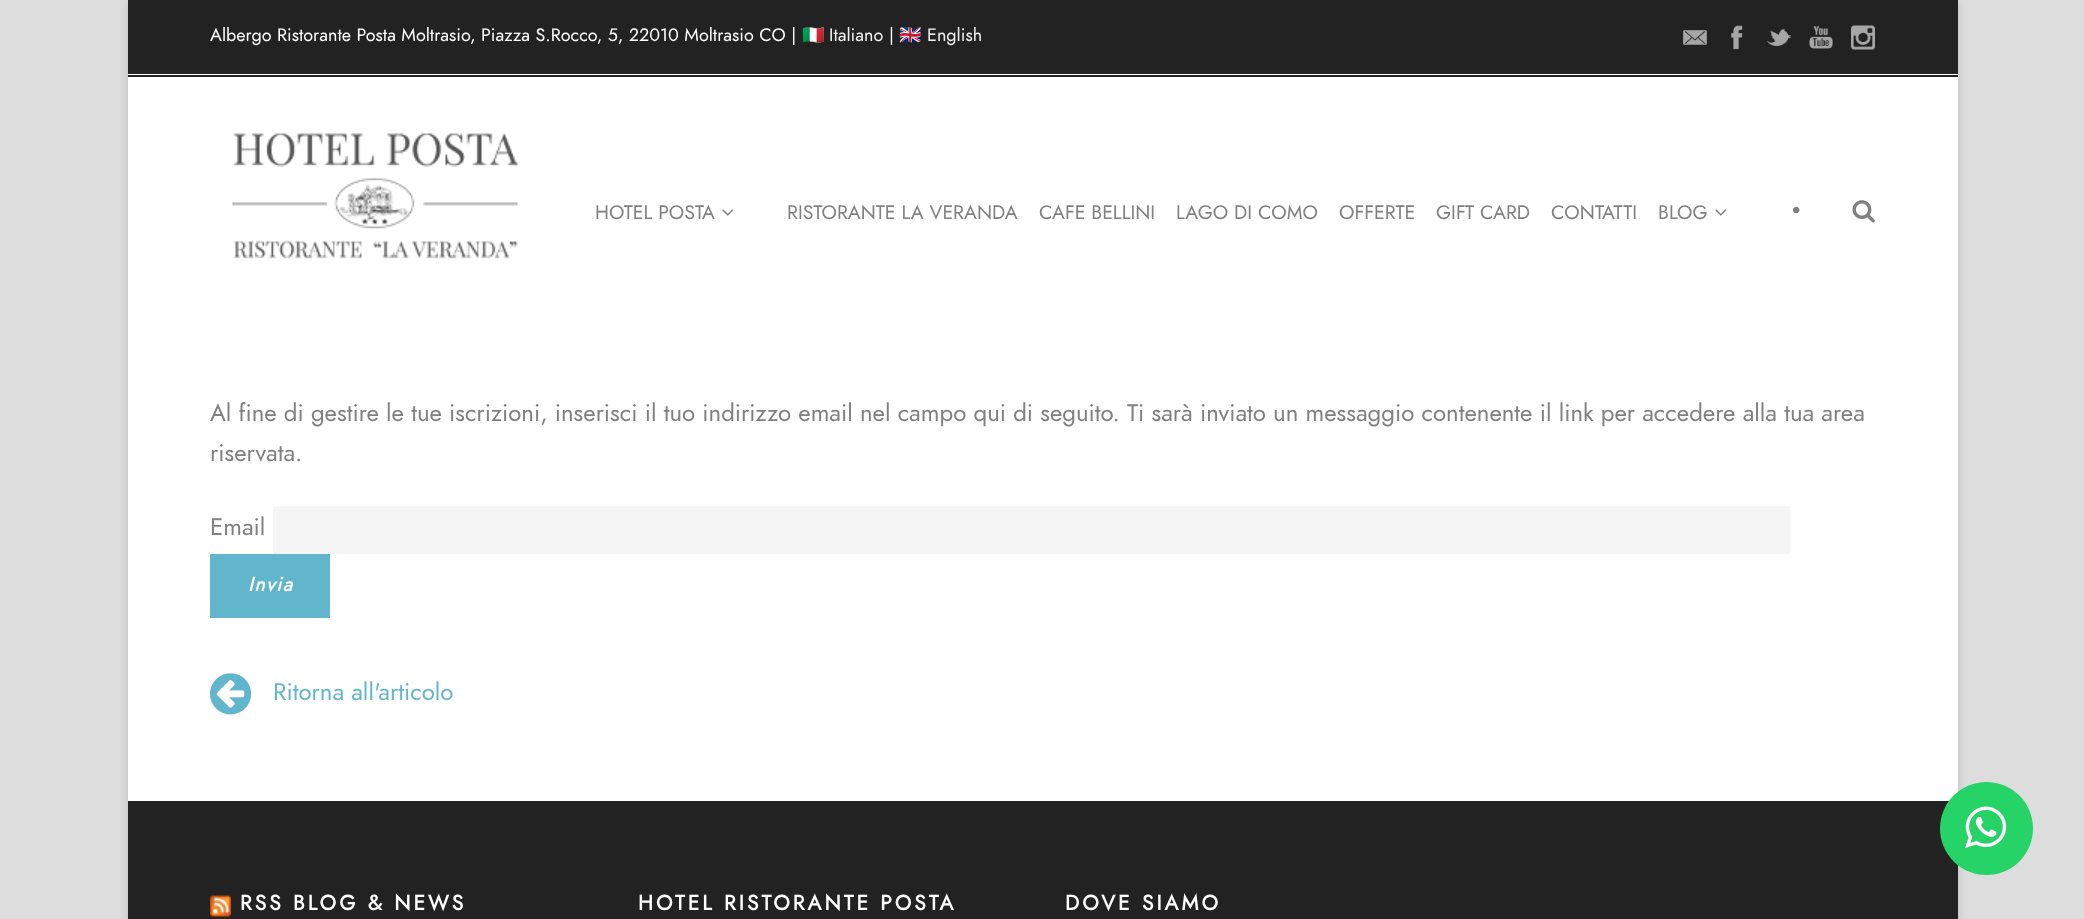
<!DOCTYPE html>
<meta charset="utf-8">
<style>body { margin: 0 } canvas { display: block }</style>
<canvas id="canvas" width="2084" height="919"></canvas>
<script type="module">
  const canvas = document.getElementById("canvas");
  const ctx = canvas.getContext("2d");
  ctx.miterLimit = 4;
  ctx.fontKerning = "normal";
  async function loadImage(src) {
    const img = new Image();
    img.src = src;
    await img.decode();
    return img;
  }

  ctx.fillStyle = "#dddddd";
  ctx.fillRect(0, 0, 2084, 919);
  ctx.fillStyle = "rgba(0, 0, 0, 0.15)";
  ctx.filter = "blur(4px)";
  ctx.beginPath();
  ctx.rect(128, 2, 1830, 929);
  ctx.fill();
  ctx.filter = "none";
  ctx.fillStyle = "#ffffff";
  ctx.fillRect(128, 74, 1830, 727);
  ctx.fillStyle = "#222222";
  ctx.fillRect(128, 0, 1830, 74);
  ctx.font = "18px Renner";
  ctx.fillStyle = "#ffffff";
  ctx.fillText("Albergo Ristorante Posta Moltrasio, Piazza S.Rocco, 5, 22010 Moltrasio CO |", 210, 41);
  ctx.font = "18px Noto Color Emoji";
  ctx.fillStyle = "#f2f2f2";
  ctx.fillText("🇮🇹", 802, 41);
  ctx.font = "18px Renner";
  ctx.fillText("Italiano", 829, 41);
  ctx.fillStyle = "#ffffff";
  ctx.fillText("|", 889, 41);
  ctx.font = "18px Noto Color Emoji";
  ctx.fillStyle = "#f2f2f2";
  ctx.fillText("🇬🇧", 899, 41);
  ctx.font = "18px Renner";
  ctx.fillText("English", 927, 41);
  ctx.drawImage(await loadImage("img1.png"), 1683, 30, 24, 15);
  ctx.drawImage(await loadImage("img2.png"), 1731, 25, 12, 25);
  ctx.drawImage(await loadImage("img3.png"), 1767, 29, 24, 18);
  ctx.drawImage(await loadImage("img4.png"), 1809, 26, 24, 23);
  ctx.drawImage(await loadImage("img5.png"), 1851, 25, 24, 25);
  ctx.fillStyle = "#222222";
  ctx.fillRect(128, 75, 1830, 2);
  ctx.drawImage(await loadImage("img6.png"), 232, 133, 286, 126);
  ctx.font = "19.5px Renner";
  ctx.fillStyle = "#808080";
  ctx.fillText("HOTEL POSTA", 595, 219);
  ctx.drawImage(await loadImage("img7.png"), 722, 209, 12, 7);
  ctx.fillText("RISTORANTE LA VERANDA", 787, 219);
  ctx.fillText("CAFE BELLINI", 1039, 219);
  ctx.fillText("LAGO DI COMO", 1176, 219);
  ctx.fillText("OFFERTE", 1339, 219);
  ctx.fillText("GIFT CARD", 1436, 219);
  ctx.fillText("CONTATTI", 1551, 219);
  ctx.fillText("BLOG", 1658, 219);
  ctx.drawImage(await loadImage("img7.png"), 1715, 209, 12, 7);
  ctx.font = "24px Liberation Sans";
  ctx.fillText("•", 1792, 218);
  ctx.drawImage(await loadImage("img8.png"), 1852, 200, 23, 23);
  ctx.font = "24px Renner";
  ctx.fillText("Al fine di gestire le tue iscrizioni, inserisci il tuo indirizzo email nel campo qui di seguito. Ti sarà inviato un messaggio contenente il link per accedere alla tua area", 210, 421);
  ctx.fillText("riservata.", 210, 461);
  ctx.fillText("Email", 210, 535);
  ctx.fillStyle = "#f5f5f5";
  ctx.fillRect(273, 506, 1517, 48);
  ctx.fillStyle = "#62b6cb";
  ctx.fillRect(210, 554, 120, 64);
  ctx.letterSpacing = "1.5px";
  ctx.font = "italic bold 19.5px Renner";
  ctx.fillStyle = "#ffffff";
  ctx.fillText("Invia", 248, 591);
  ctx.drawImage(await loadImage("img9.png"), 210, 673, 42, 42);
  ctx.letterSpacing = "0px";
  ctx.font = "24px Renner";
  ctx.fillStyle = "#62b6cb";
  ctx.fillText("Ritorna all'articolo", 273, 700);
  ctx.fillStyle = "#222222";
  ctx.fillRect(128, 801, 1830, 118);
  ctx.drawImage(await loadImage("img10.png"), 210, 895, 21, 22);
  ctx.letterSpacing = "3px";
  ctx.font = "bold 21px Renner";
  ctx.fillStyle = "#ffffff";
  ctx.fillText("RSS BLOG & NEWS", 240, 910);
  ctx.fillText("HOTEL RISTORANTE POSTA", 638, 910);
  ctx.fillText("DOVE SIAMO", 1065, 910);
  ctx.fillStyle = "#25d366";
  ctx.beginPath();
  ctx.arc(1986.5, 828.5, 46.5, 0, Math.PI * 2);
  ctx.fill();
  ctx.drawImage(await loadImage("img11.png"), 1965, 806, 42, 42);
</script>
